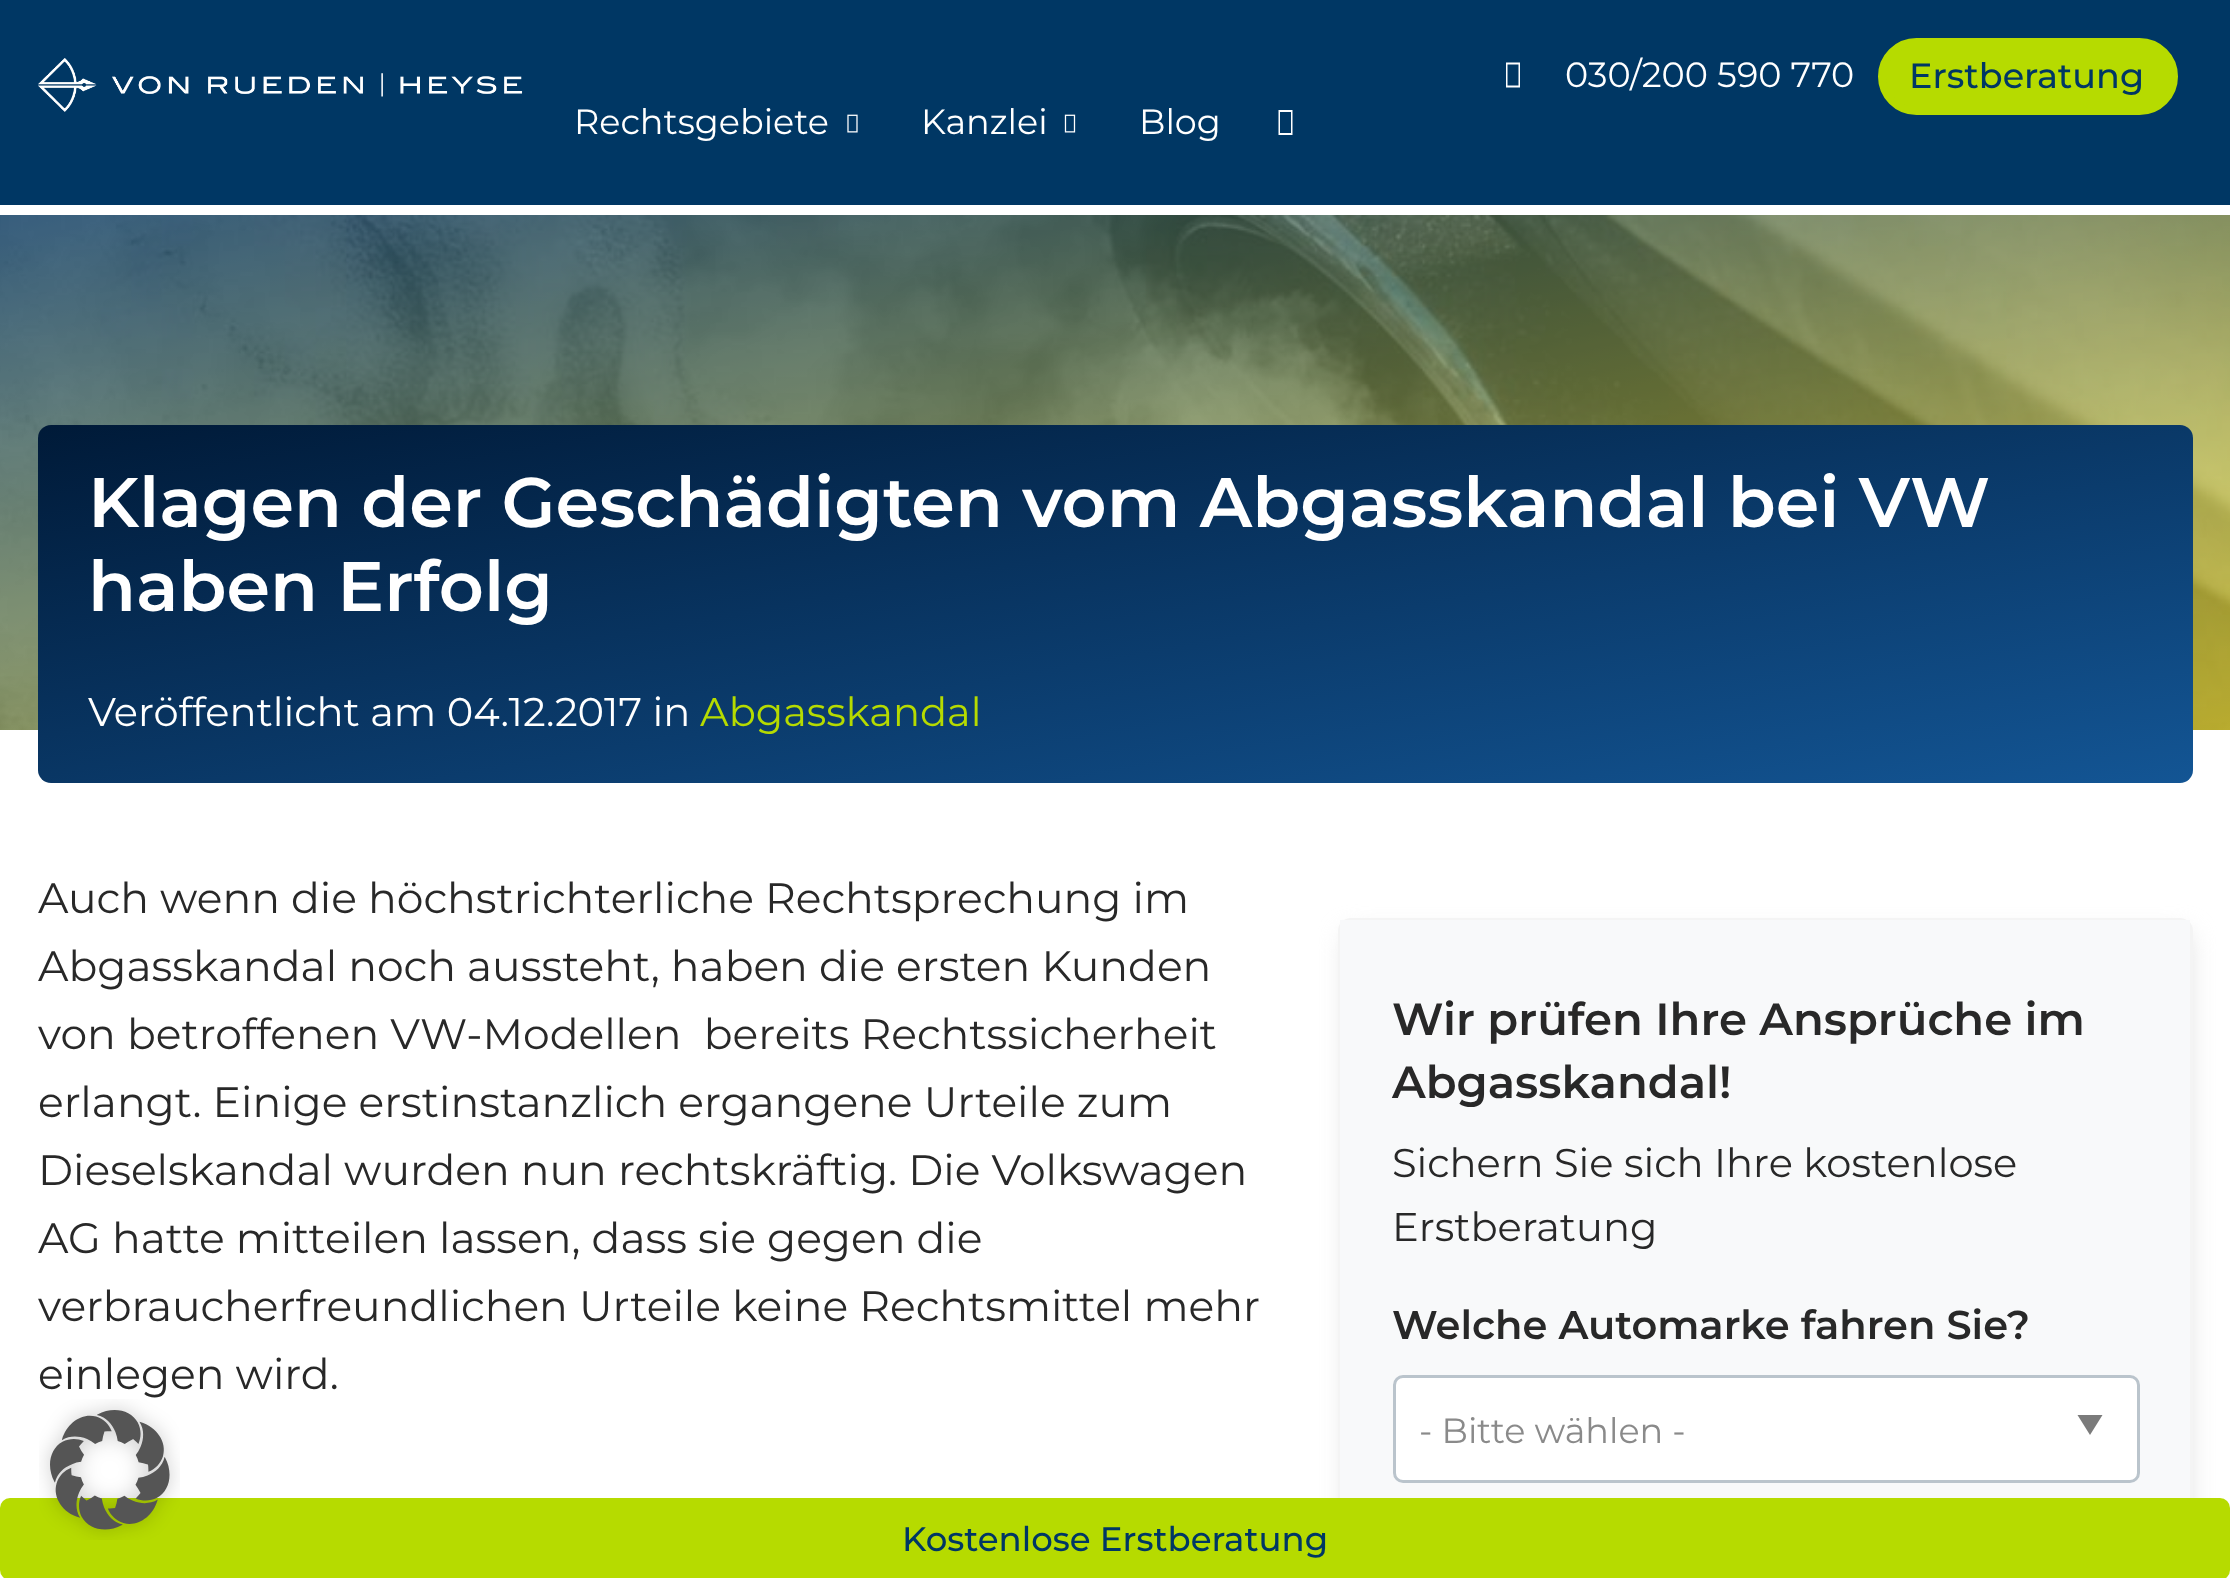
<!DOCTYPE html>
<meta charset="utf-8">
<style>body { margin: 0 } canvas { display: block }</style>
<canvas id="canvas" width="2230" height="1578"></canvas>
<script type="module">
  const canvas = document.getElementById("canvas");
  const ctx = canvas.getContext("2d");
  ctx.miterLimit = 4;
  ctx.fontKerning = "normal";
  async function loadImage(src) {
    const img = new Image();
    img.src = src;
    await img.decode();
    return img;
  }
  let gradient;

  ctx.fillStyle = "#ffffff";
  ctx.fillRect(0, 0, 2230, 1578);
  ctx.fillStyle = "#003764";
  ctx.fillRect(0, 0, 2230, 205);
  ctx.drawImage(await loadImage("img1.png"), 38, 58, 485, 54);
  ctx.fillStyle = "#ffffff";
  ctx.beginPath();
  ctx.moveTo(1506, 87.5);
  ctx.lineTo(1506, 62.5);
  ctx.lineTo(1520, 62.5);
  ctx.lineTo(1520, 87.5);
  ctx.closePath();
  ctx.moveTo(1507.5, 85.5);
  ctx.lineTo(1518.5, 85.5);
  ctx.lineTo(1518.5, 64.5);
  ctx.lineTo(1507.5, 64.5);
  ctx.closePath();
  ctx.fill();
  ctx.font = "35px Montserrat";
  ctx.fillText("030/200 590 770", 1565, 87);
  ctx.fillStyle = "#b6db00";
  ctx.beginPath();
  ctx.roundRect(1882, 42, 292, 69, 34.5);
  ctx.fill();
  ctx.strokeStyle = "#b6db00";
  ctx.lineWidth = 8;
  ctx.stroke();
  ctx.font = "500 35px Montserrat";
  ctx.fillStyle = "#003764";
  ctx.fillText("Erstberatung", 1909, 88);
  ctx.font = "35px Montserrat";
  ctx.fillStyle = "#ffffff";
  ctx.fillText("Rechtsgebiete", 574, 134);
  ctx.drawImage(await loadImage("img2.png"), 847, 114, 11, 19);
  ctx.fillText("Kanzlei", 921, 134);
  ctx.drawImage(await loadImage("img3.png"), 1064, 114, 12, 19);
  ctx.fillText("Blog", 1139, 134);
  ctx.beginPath();
  ctx.moveTo(1278.5, 135);
  ctx.lineTo(1278.5, 110);
  ctx.lineTo(1292.5, 110);
  ctx.lineTo(1292.5, 135);
  ctx.closePath();
  ctx.moveTo(1280, 133);
  ctx.lineTo(1291, 133);
  ctx.lineTo(1291, 112);
  ctx.lineTo(1280, 112);
  ctx.closePath();
  ctx.fill();
  gradient = ctx.createLinearGradient(1002, -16, 1228, 961);
  gradient.addColorStop(0, "#003764");
  gradient.addColorStop(1, "#ffec39");
  ctx.fillStyle = gradient;
  ctx.fillRect(0, 215, 2230, 515);
  ctx.drawImage(await loadImage("img4.png"), 0, 215, 2230, 515);
  gradient = ctx.createLinearGradient(1052, 246, 1178, 961);
  gradient.addColorStop(0, "#001a38");
  gradient.addColorStop(1, "#135594");
  ctx.fillStyle = gradient;
  ctx.beginPath();
  ctx.roundRect(38, 425, 2155, 358, 13);
  ctx.fill();
  ctx.font = "600 70px Montserrat";
  ctx.fillStyle = "#ffffff";
  ctx.fillText("Klagen der Geschädigten vom Abgasskandal bei VW", 88, 527);
  ctx.fillText("haben Erfolg", 88, 611);
  ctx.font = "40px Montserrat";
  ctx.fillText("Veröffentlicht am 04.12.2017 in", 88, 726);
  ctx.fillStyle = "#b6db00";
  ctx.fillText("Abgasskandal", 700, 726);
  ctx.font = "42.5px Montserrat";
  ctx.fillStyle = "#282828";
  ctx.fillText("Auch wenn die höchstrichterliche Rechtsprechung im", 38, 913);
  ctx.fillText("Abgasskandal noch aussteht, haben die ersten Kunden", 38, 981);
  ctx.fillText("von betroffenen VW-Modellen  bereits Rechtssicherheit", 38, 1049);
  ctx.fillText("erlangt. Einige erstinstanzlich ergangene Urteile zum", 38, 1117);
  ctx.fillText("Dieselskandal wurden nun rechtskräftig. Die Volkswagen", 38, 1185);
  ctx.fillText("AG hatte mitteilen lassen, dass sie gegen die", 38, 1253);
  ctx.fillText("verbraucherfreundlichen Urteile keine Rechtsmittel mehr", 38, 1321);
  ctx.fillText("einlegen wird.", 38, 1389);
  ctx.fillStyle = "#e1e1e1";
  ctx.filter = "blur(12.5px)";
  ctx.beginPath();
  ctx.roundRect(1345, 933, 845, 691, 8);
  ctx.fill();
  ctx.filter = "none";
  ctx.beginPath();
  ctx.roundRect(1339.5, 919.5, 852, 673, 11.5);
  ctx.strokeStyle = "#f4f4f4";
  ctx.lineWidth = 3;
  ctx.stroke();
  ctx.fillStyle = "#f8f9fa";
  ctx.fillRect(1340, 920, 850, 578);
  ctx.font = "600 45px Montserrat";
  ctx.fillStyle = "#282828";
  ctx.fillText("Wir prüfen Ihre Ansprüche im", 1392, 1035);
  ctx.fillText("Abgasskandal!", 1392, 1098);
  ctx.font = "40px Montserrat";
  ctx.fillText("Sichern Sie sich Ihre kostenlose", 1392, 1177);
  ctx.fillText("Erstberatung", 1392, 1241);
  ctx.font = "600 40px Montserrat";
  ctx.fillText("Welche Automarke fahren Sie?", 1392, 1339);
  ctx.fillStyle = "#ffffff";
  ctx.beginPath();
  ctx.roundRect(1394.5, 1376.5, 744, 105, 8.5);
  ctx.fill();
  ctx.strokeStyle = "#bac4cc";
  ctx.stroke();
  ctx.font = "35px Montserrat";
  ctx.fillStyle = "#8a8a8a";
  ctx.fillText("- Bitte wählen -", 1419, 1443);
  ctx.fillStyle = "#7b7b7b";
  ctx.beginPath();
  ctx.moveTo(2077.5, 1415);
  ctx.lineTo(2102.5, 1415);
  ctx.lineTo(2090, 1435);
  ctx.closePath();
  ctx.fill();
  ctx.fillStyle = "#b6db00";
  ctx.beginPath();
  ctx.roundRect(0, 1498, 2230, 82, 10);
  ctx.fill();
  ctx.font = "500 34px Montserrat";
  ctx.fillStyle = "#003764";
  ctx.fillText("Kostenlose Erstberatung", 902, 1551);
  ctx.drawImage(await loadImage("img5.png"), 39, 1399, 141, 141);
</script>
